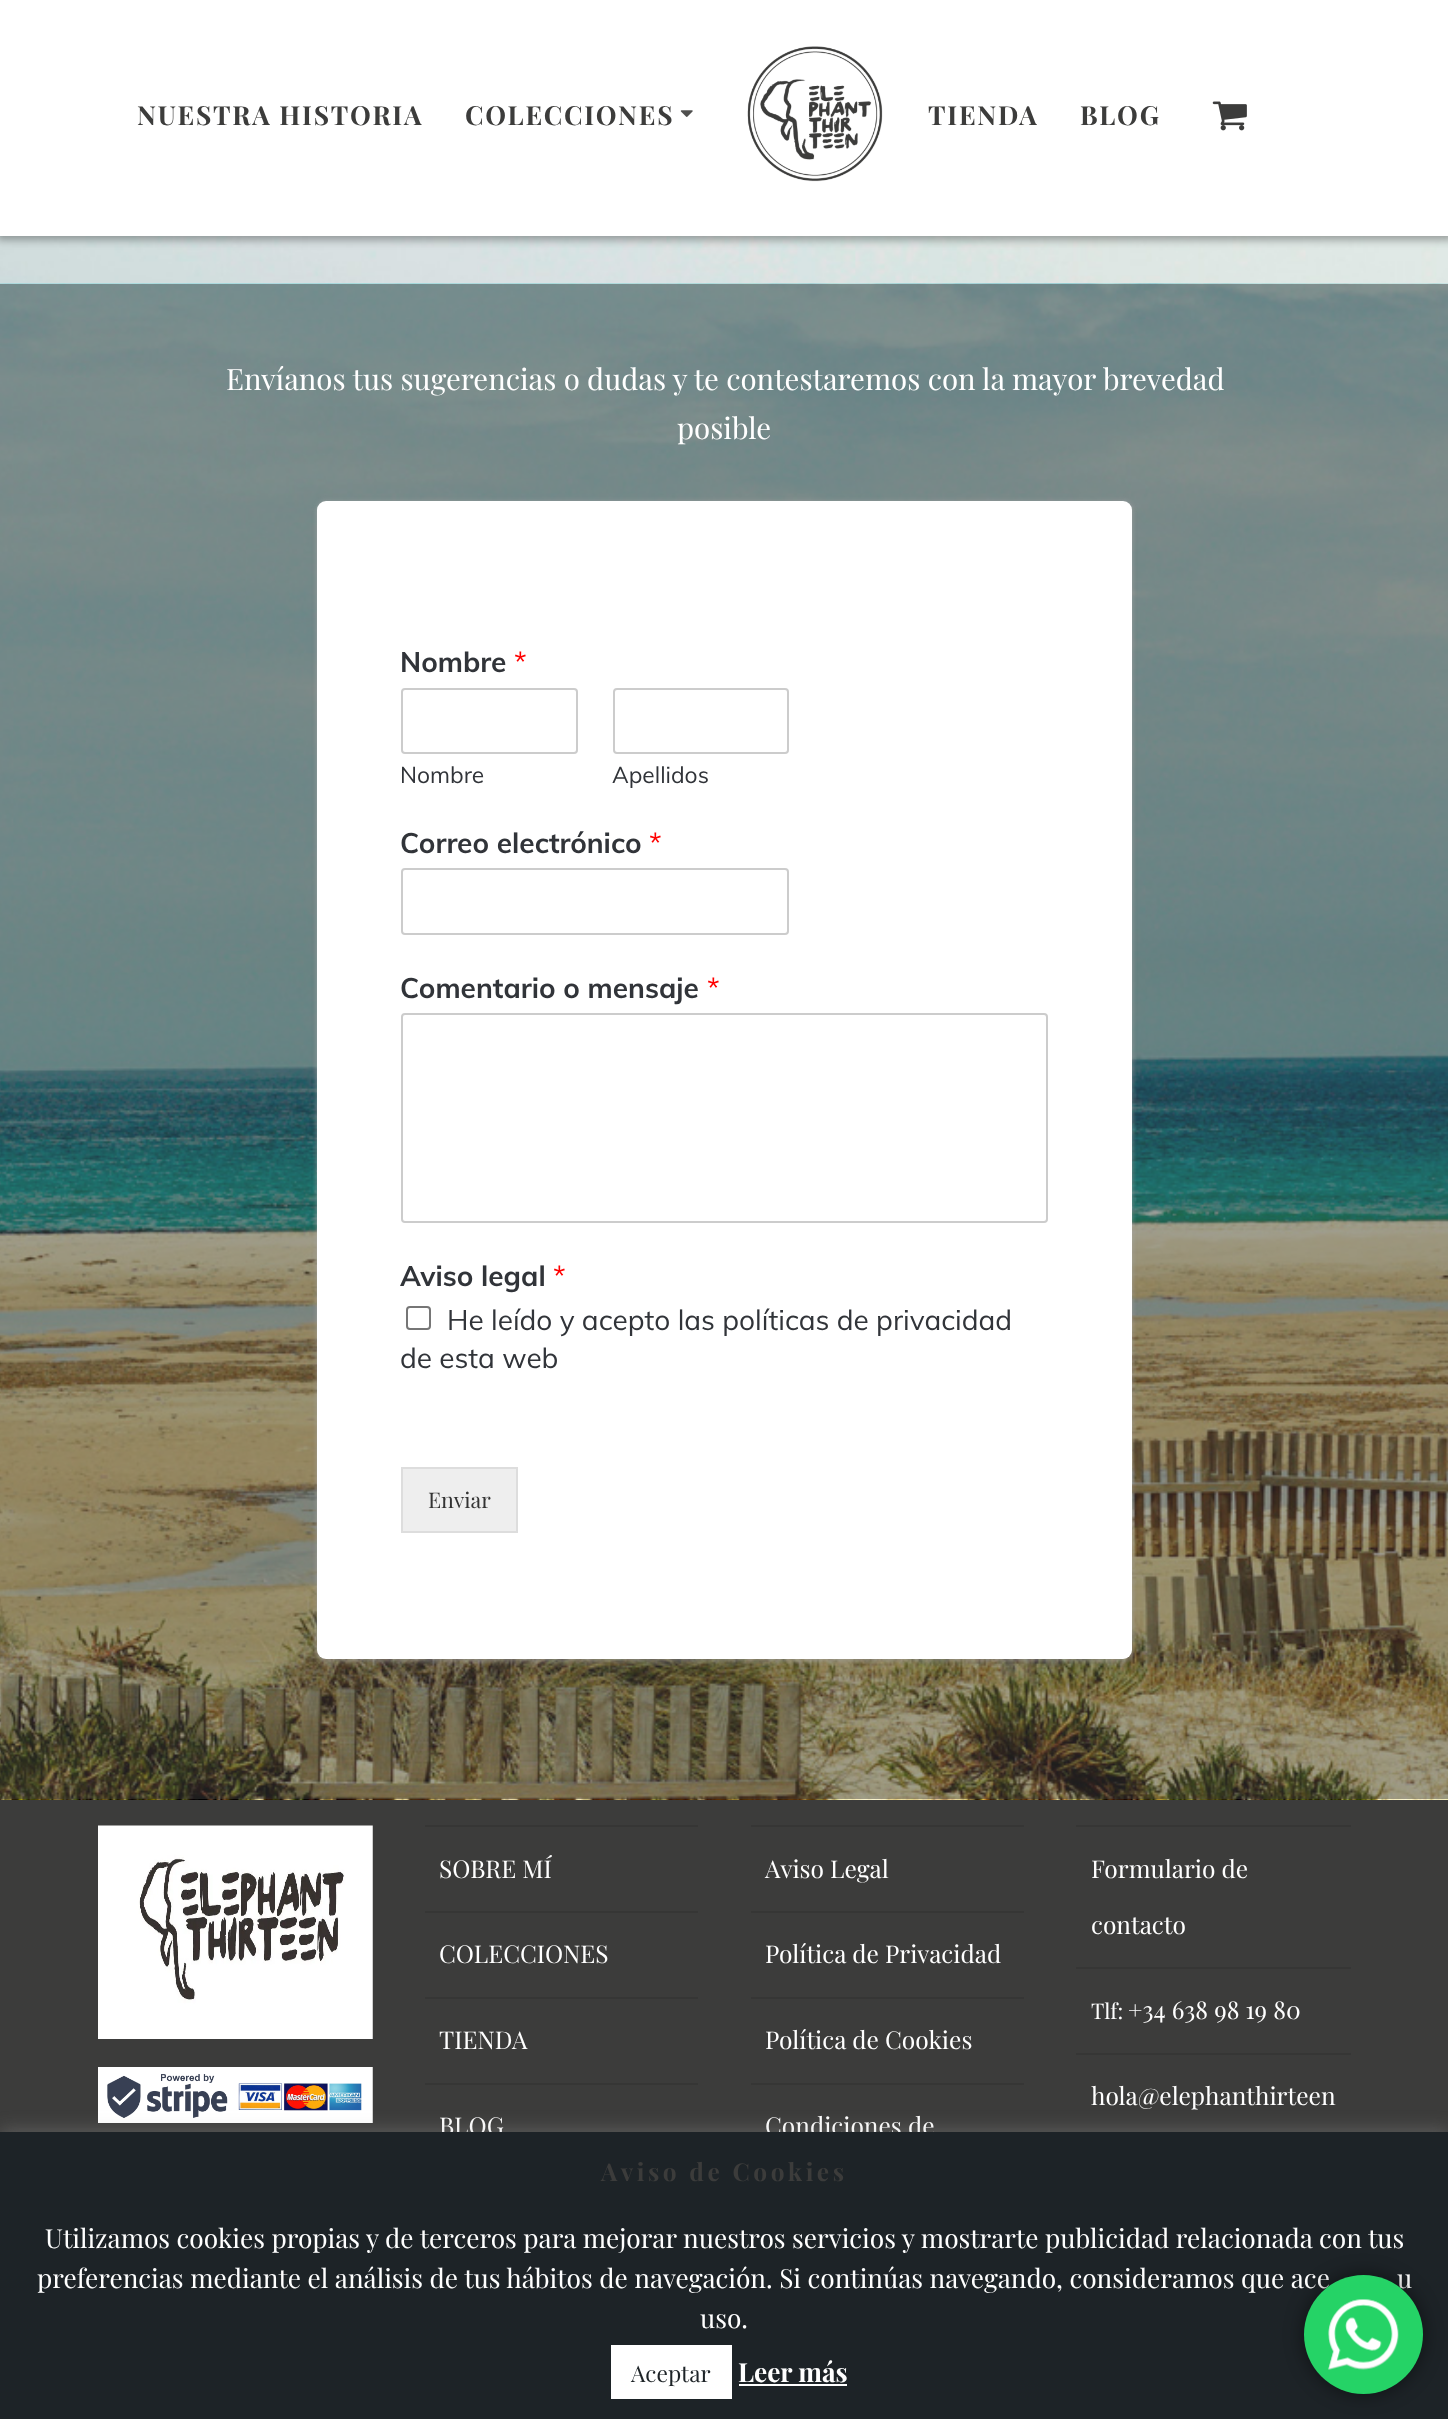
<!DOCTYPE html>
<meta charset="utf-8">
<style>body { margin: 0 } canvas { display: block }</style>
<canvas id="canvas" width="1448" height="2419"></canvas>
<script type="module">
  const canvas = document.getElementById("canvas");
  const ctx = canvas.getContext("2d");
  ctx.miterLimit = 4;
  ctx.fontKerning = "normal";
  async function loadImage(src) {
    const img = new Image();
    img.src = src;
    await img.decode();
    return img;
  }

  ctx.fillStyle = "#ffffff";
  ctx.fillRect(0, 0, 1448, 2419);
  ctx.drawImage(await loadImage("img4.png"), 0, 236, 1448, 47);
  ctx.fillStyle = "rgba(0, 0, 0, 0.33)";
  ctx.filter = "blur(4.5px)";
  ctx.beginPath();
  ctx.rect(-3, -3, 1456, 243);
  ctx.fill();
  ctx.filter = "none";
  ctx.fillStyle = "#ffffff";
  ctx.fillRect(0, 0, 1448, 236);
  ctx.letterSpacing = "1.75px";
  ctx.font = "bold 26.25px Playfair Display";
  ctx.fillStyle = "#3c3c3b";
  ctx.fillText("NUESTRA HISTORIA", 137, 125);
  ctx.fillText("COLECCIONES", 465, 125);
  ctx.drawImage(await loadImage("img1.png"), 680, 110, 13, 7);
  ctx.drawImage(await loadImage("img2.png"), 747, 46, 136, 136);
  ctx.fillText("TIENDA", 928, 125);
  ctx.fillText("BLOG", 1080, 125);
  ctx.drawImage(await loadImage("img3.png"), 1212, 101, 35, 30);
  ctx.drawImage(await loadImage("img5.png"), 0, 283, 1448, 1517);
  ctx.letterSpacing = "0px";
  ctx.font = "29.4px Playfair Display";
  ctx.fillStyle = "#ffffff";
  ctx.fillText("Envíanos tus sugerencias o dudas y te contestaremos con la mayor brevedad", 226, 390);
  ctx.fillText("posible", 677, 439);
  ctx.fillStyle = "rgba(0, 0, 0, 0.08)";
  ctx.filter = "blur(2.5px)";
  ctx.beginPath();
  ctx.roundRect(317, 504, 815, 1159, 9);
  ctx.fill();
  ctx.filter = "none";
  ctx.fillStyle = "rgba(189, 189, 189, 0.3)";
  ctx.filter = "blur(2.5px)";
  ctx.beginPath();
  ctx.roundRect(317, 504, 815, 1159, 9);
  ctx.fill();
  ctx.filter = "none";
  ctx.fillStyle = "rgba(189, 189, 189, 0.4)";
  ctx.filter = "blur(2.5px)";
  ctx.beginPath();
  ctx.roundRect(317, 501, 815, 1158, 9);
  ctx.fill();
  ctx.filter = "none";
  ctx.fillStyle = "#ffffff";
  ctx.beginPath();
  ctx.roundRect(317, 501, 815, 1158, 9);
  ctx.fill();
  ctx.font = "bold 28px Muli";
  ctx.fillStyle = "#313439";
  ctx.fillText("Nombre", 400, 672);
  ctx.font = "28px Muli";
  ctx.fillStyle = "#ff0000";
  ctx.fillText("*", 514, 672);
  ctx.beginPath();
  ctx.roundRect(402, 689, 175, 64, 3);
  ctx.strokeStyle = "#cccccc";
  ctx.lineWidth = 2;
  ctx.stroke();
  ctx.font = "22.75px Muli";
  ctx.fillStyle = "#313439";
  ctx.fillText("Nombre", 400, 783);
  ctx.beginPath();
  ctx.roundRect(614, 689, 174, 64, 3);
  ctx.stroke();
  ctx.fillText("Apellidos", 612, 783);
  ctx.font = "bold 28px Muli";
  ctx.fillText("Correo electrónico", 400, 853);
  ctx.font = "28px Muli";
  ctx.fillStyle = "#ff0000";
  ctx.fillText("*", 649, 853);
  ctx.beginPath();
  ctx.roundRect(402, 869, 386, 65, 3);
  ctx.stroke();
  ctx.font = "bold 28px Muli";
  ctx.fillStyle = "#313439";
  ctx.fillText("Comentario o mensaje", 400, 998);
  ctx.font = "28px Muli";
  ctx.fillStyle = "#ff0000";
  ctx.fillText("*", 707, 998);
  ctx.beginPath();
  ctx.roundRect(402, 1014, 645, 208, 3);
  ctx.stroke();
  ctx.font = "bold 28px Muli";
  ctx.fillStyle = "#313439";
  ctx.fillText("Aviso legal", 400, 1286);
  ctx.font = "28px Muli";
  ctx.fillStyle = "#ff0000";
  ctx.fillText("*", 553, 1286);
  ctx.beginPath();
  ctx.roundRect(407, 1307, 23, 22, 3);
  ctx.strokeStyle = "#767676";
  ctx.stroke();
  ctx.fillStyle = "#313439";
  ctx.fillText("He leído y acepto las políticas de privacidad", 447, 1330);
  ctx.fillText("de esta web", 400, 1368);
  ctx.fillStyle = "#eeeeee";
  ctx.beginPath();
  ctx.rect(402, 1468, 115, 64);
  ctx.fill();
  ctx.strokeStyle = "#dddddd";
  ctx.stroke();
  ctx.font = "21.5px Playfair Display";
  ctx.fillStyle = "#333333";
  ctx.fillText("Enviar", 428, 1508);
  ctx.fillStyle = "#3c3c3b";
  ctx.fillRect(0, 1800, 1448, 332);
  ctx.drawImage(await loadImage("img6.png"), 98, 1825, 275, 214);
  ctx.drawImage(await loadImage("img7.png"), 98, 2067, 275, 56);
  ctx.fillStyle = "#363635";
  ctx.fillRect(425, 1825, 273, 2);
  ctx.font = "24.5px Playfair Display";
  ctx.fillStyle = "#ffffff";
  ctx.fillText("SOBRE MÍ", 439, 1878);
  ctx.fillStyle = "#363635";
  ctx.fillRect(425, 1911, 273, 2);
  ctx.fillStyle = "#ffffff";
  ctx.fillText("COLECCIONES", 439, 1963);
  ctx.fillStyle = "#363635";
  ctx.fillRect(425, 1997, 273, 2);
  ctx.fillStyle = "#ffffff";
  ctx.fillText("TIENDA", 439, 2049);
  ctx.fillStyle = "#363635";
  ctx.fillRect(425, 2083, 273, 2);
  ctx.fillStyle = "#ffffff";
  ctx.fillText("BLOG", 439, 2135);
  ctx.fillStyle = "#363635";
  ctx.fillRect(751, 1825, 273, 2);
  ctx.fillStyle = "#ffffff";
  ctx.fillText("Aviso Legal", 765, 1878);
  ctx.fillStyle = "#363635";
  ctx.fillRect(751, 1911, 273, 2);
  ctx.fillStyle = "#ffffff";
  ctx.fillText("Política de Privacidad", 765, 1963);
  ctx.fillStyle = "#363635";
  ctx.fillRect(751, 1997, 273, 2);
  ctx.fillStyle = "#ffffff";
  ctx.fillText("Política de Cookies", 765, 2049);
  ctx.fillStyle = "#363635";
  ctx.fillRect(751, 2083, 273, 2);
  ctx.fillStyle = "#ffffff";
  ctx.fillText("Condiciones de", 765, 2135);
  ctx.fillStyle = "#363635";
  ctx.fillRect(1076, 1825, 275, 2);
  ctx.fillStyle = "#ffffff";
  ctx.fillText("Formulario de", 1091, 1878);
  ctx.fillText("contacto", 1091, 1934);
  ctx.fillStyle = "#363635";
  ctx.fillRect(1076, 1967, 275, 2);
  ctx.font = "21.5px Playfair Display";
  ctx.fillStyle = "#ffffff";
  ctx.fillText("Tlf:", 1091, 2019);
  ctx.font = "24.5px Playfair Display";
  ctx.fillText("+34 638 98 19 80", 1128, 2019);
  ctx.fillStyle = "#363635";
  ctx.fillRect(1076, 2053, 275, 2);
  ctx.fillStyle = "#ffffff";
  ctx.fillText("hola@elephanthirteen", 1091, 2105);
  ctx.fillStyle = "rgba(172, 171, 171, 0.3)";
  ctx.filter = "blur(9px)";
  ctx.beginPath();
  ctx.rect(0, 2130, 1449, 289);
  ctx.fill();
  ctx.filter = "none";
  ctx.fillStyle = "#1d2327";
  ctx.fillRect(0, 2132, 1448, 287);
  ctx.letterSpacing = "3.5px";
  ctx.font = "bold 24.5px Playfair Display";
  ctx.fillStyle = "#3c3c3b";
  ctx.fillText("Aviso de Cookies", 601, 2181);
  ctx.letterSpacing = "0px";
  ctx.font = "26.25px Playfair Display";
  ctx.fillStyle = "#ffffff";
  ctx.fillText("Utilizamos cookies propias y de terceros para mejorar nuestros servicios y mostrarte publicidad relacionada con tus", 45, 2248);
  ctx.fillText("preferencias mediante el análisis de tus hábitos de navegación. Si continúas navegando, consideramos que ace", 37, 2288);
  ctx.fillText("u", 1397, 2288);
  ctx.fillText("uso.", 700, 2328);
  ctx.fillRect(611, 2345, 121, 54);
  ctx.font = "22.75px Playfair Display";
  ctx.fillStyle = "#1d2327";
  ctx.fillText("Aceptar", 631, 2382);
  ctx.font = "bold 26.25px Playfair Display";
  ctx.fillStyle = "#ffffff";
  ctx.fillText("Leer más", 738, 2382);
  ctx.fillRect(739, 2384, 108, 2);
  ctx.fillStyle = "rgba(0, 0, 0, 0.5)";
  ctx.filter = "blur(9.5px)";
  ctx.beginPath();
  ctx.roundRect(1304, 2275, 119, 119, 59.5);
  ctx.fill();
  ctx.filter = "none";
  ctx.fillStyle = "#25d366";
  ctx.beginPath();
  ctx.arc(1363.5, 2334.5, 59.5, 0, Math.PI * 2);
  ctx.fill();
  ctx.drawImage(await loadImage("img8.png"), 1328, 2299, 71, 71);
</script>
